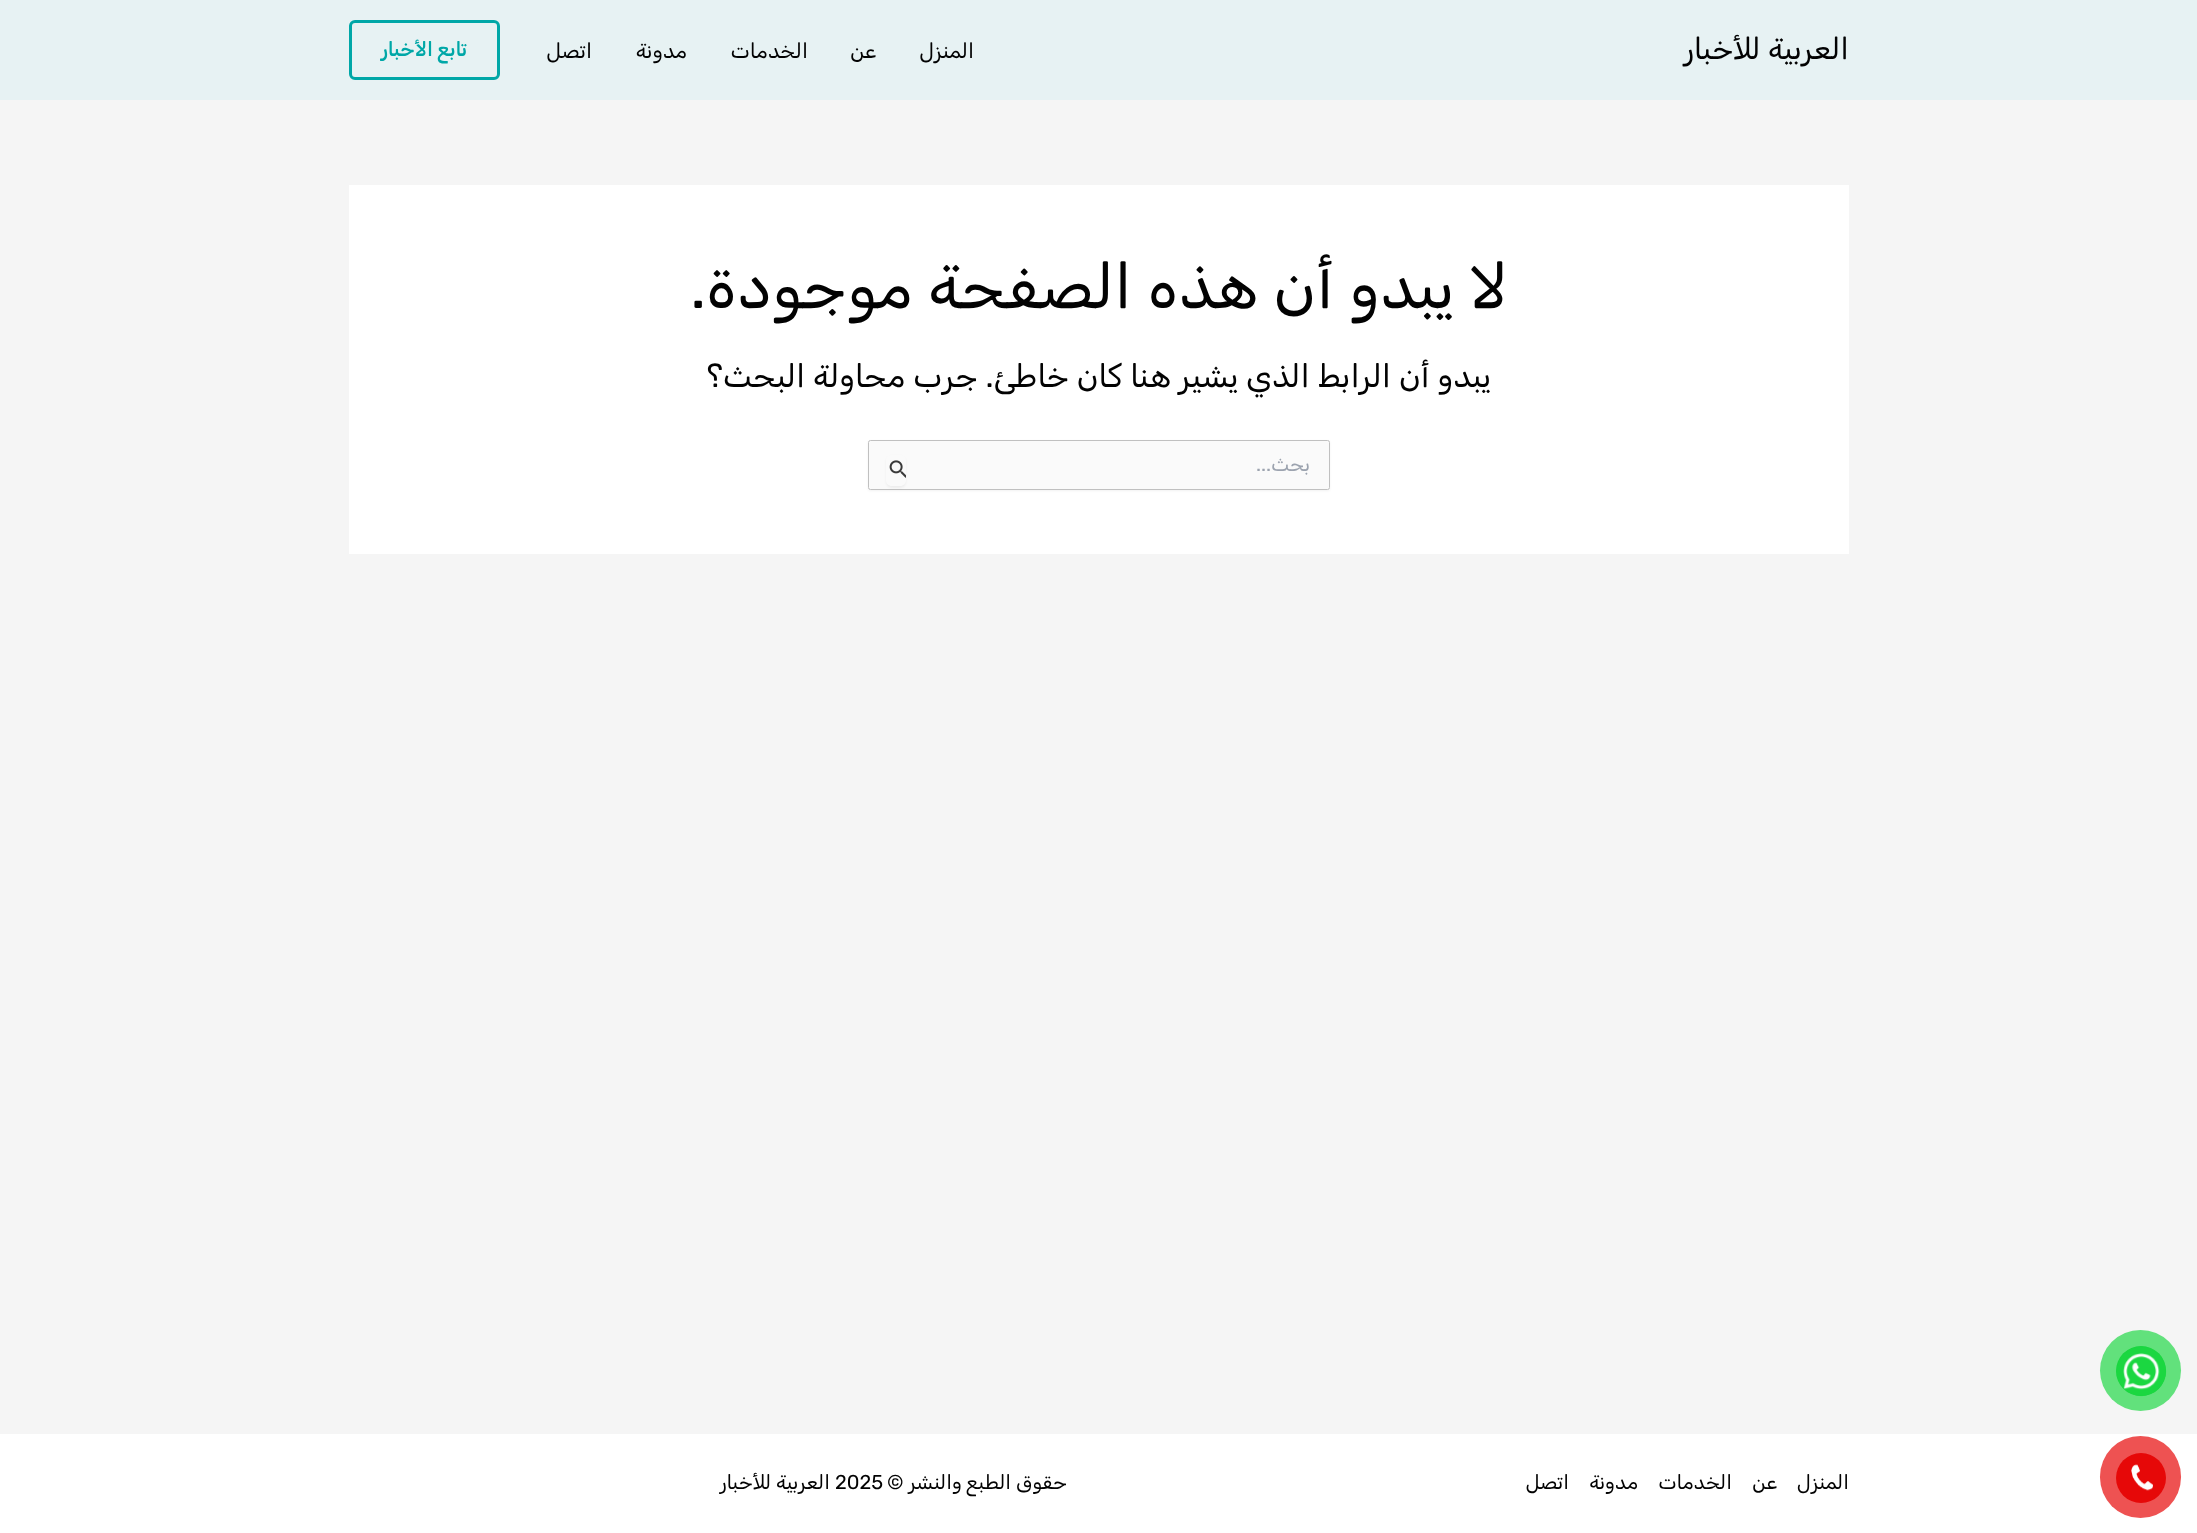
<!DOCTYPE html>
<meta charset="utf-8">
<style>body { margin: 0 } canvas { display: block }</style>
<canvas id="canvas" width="2197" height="1533"></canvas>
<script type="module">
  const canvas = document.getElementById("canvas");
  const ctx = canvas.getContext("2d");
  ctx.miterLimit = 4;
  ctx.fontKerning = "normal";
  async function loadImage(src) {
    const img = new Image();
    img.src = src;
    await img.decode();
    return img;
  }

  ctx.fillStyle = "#f5f5f5";
  ctx.fillRect(0, 0, 2197, 1533);
  ctx.fillStyle = "#62e17c";
  ctx.beginPath();
  ctx.arc(2140.5, 1370.5, 40.5, 0, Math.PI * 2);
  ctx.fill();
  ctx.fillStyle = "#1cd741";
  ctx.beginPath();
  ctx.arc(2141, 1371, 25, 0, Math.PI * 2);
  ctx.fill();
  ctx.drawImage(await loadImage("img1.png"), 2116, 1346, 51, 51);
  ctx.fillStyle = "#ffffff";
  ctx.fillRect(0, 1434, 2197, 99);
  ctx.fillStyle = "#ee5252";
  ctx.beginPath();
  ctx.roundRect(2100, 1436, 81, 82, 40.5);
  ctx.fill();
  ctx.fillStyle = "#e60808";
  ctx.beginPath();
  ctx.arc(2141, 1478, 25, 0, Math.PI * 2);
  ctx.fill();
  ctx.drawImage(await loadImage("img2.png"), 2131, 1464, 22, 27);
  ctx.fillStyle = "#e7f2f3";
  ctx.fillRect(0, 0, 2197, 100);
  ctx.direction = "rtl";
  ctx.font = "30px Rubik";
  ctx.fillStyle = "#020202";
  ctx.fillText("العربية للأخبار", 1849, 59);
  ctx.font = "21px Rubik";
  ctx.fillText("المنزل", 974, 58);
  ctx.fillText("عن", 876, 58);
  ctx.fillText("الخدمات", 808, 58);
  ctx.fillText("مدونة", 687, 58);
  ctx.fillText("اتصل", 592, 58);
  ctx.beginPath();
  ctx.roundRect(350.5, 21.5, 148, 57, 4.5);
  ctx.strokeStyle = "#00a7a7";
  ctx.lineWidth = 3;
  ctx.stroke();
  ctx.font = "500 20px Rubik";
  ctx.fillStyle = "#00a7a7";
  ctx.fillText("تابع الأخبار", 467, 56);
  ctx.fillStyle = "#ffffff";
  ctx.fillRect(349, 185, 1500, 369);
  ctx.font = "62.5px Rubik";
  ctx.fillStyle = "#020202";
  ctx.fillText("لا يبدو أن هذه الصفحة موجودة.", 1508, 308);
  ctx.font = "31.9px Rubik";
  ctx.fillText("يبدو أن الرابط الذي يشير هنا كان خاطئ. جرب محاولة البحث؟", 1491, 387);
  ctx.fillStyle = "rgba(0, 0, 0, 0.05)";
  ctx.filter = "blur(1px)";
  ctx.beginPath();
  ctx.roundRect(868, 441, 462, 50, 2.5);
  ctx.fill();
  ctx.filter = "none";
  ctx.fillStyle = "#fafafa";
  ctx.beginPath();
  ctx.roundRect(868.5, 440.5, 461, 49, 2);
  ctx.fill();
  ctx.strokeStyle = "#c0c0c0";
  ctx.lineWidth = 1;
  ctx.stroke();
  ctx.font = "20px Rubik";
  ctx.fillStyle = "#9ca3af";
  ctx.fillText("بحث...", 1310, 471);
  ctx.save();
  ctx.beginPath();
  ctx.moveTo(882, 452);
  ctx.lineTo(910, 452);
  ctx.lineTo(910, 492);
  ctx.lineTo(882, 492);
  ctx.closePath();
  ctx.moveTo(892, 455);
  ctx.lineTo(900, 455);
  ctx.bezierCurveTo(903.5, 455, 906, 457.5, 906, 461);
  ctx.lineTo(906, 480);
  ctx.bezierCurveTo(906, 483.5, 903.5, 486, 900, 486);
  ctx.lineTo(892, 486);
  ctx.bezierCurveTo(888.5, 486, 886, 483.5, 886, 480);
  ctx.lineTo(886, 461);
  ctx.bezierCurveTo(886, 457.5, 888.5, 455, 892, 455);
  ctx.closePath();
  ctx.clip("evenodd");
  ctx.fillStyle = "rgba(0, 0, 0, 0.05)";
  ctx.filter = "blur(1px)";
  ctx.beginPath();
  ctx.roundRect(886, 456, 20, 32, 6);
  ctx.fill();
  ctx.filter = "none";
  ctx.restore();
  ctx.drawImage(await loadImage("img3.png"), 889, 460, 17, 18);
  ctx.fillStyle = "#020202";
  ctx.fillText("المنزل", 1849, 1489);
  ctx.fillText("عن", 1777, 1489);
  ctx.fillText("الخدمات", 1732, 1489);
  ctx.fillText("مدونة", 1638, 1489);
  ctx.fillText("اتصل", 1569, 1489);
  ctx.fillText("حقوق الطبع والنشر ©", 1067, 1489);
  ctx.direction = "ltr";
  ctx.fillText("2025", 835, 1489);
  ctx.direction = "rtl";
  ctx.fillText("العربية للأخبار", 830, 1489);
</script>
